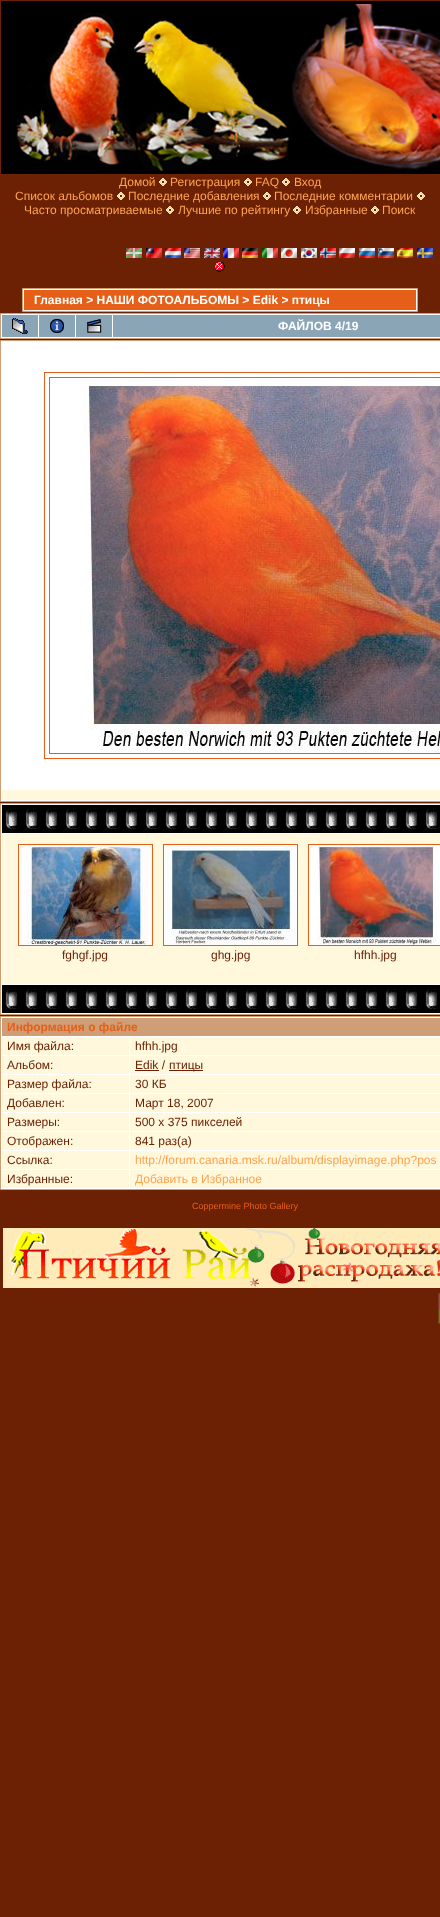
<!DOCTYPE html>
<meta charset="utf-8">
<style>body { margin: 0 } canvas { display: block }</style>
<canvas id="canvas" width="440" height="1917"></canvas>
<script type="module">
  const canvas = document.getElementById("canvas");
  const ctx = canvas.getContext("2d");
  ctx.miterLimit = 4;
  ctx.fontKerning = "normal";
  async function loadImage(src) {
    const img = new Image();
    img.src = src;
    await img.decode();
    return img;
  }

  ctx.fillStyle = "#6c2104";
  ctx.fillRect(0, 0, 440, 1917);
  ctx.fillStyle = "#000000";
  ctx.fillRect(1, 1, 439, 173);
  ctx.drawImage(await loadImage("img1.png"), 13, 4, 427, 167);
  ctx.font = "12px Liberation Sans";
  ctx.fillStyle = "#ffa34f";
  ctx.fillText("Домой", 119, 186);
  ctx.drawImage(await loadImage("img2.png"), 159, 178, 8, 8);
  ctx.fillText("Регистрация", 170, 186);
  ctx.drawImage(await loadImage("img2.png"), 244, 178, 8, 8);
  ctx.fillText("FAQ", 255, 186);
  ctx.drawImage(await loadImage("img2.png"), 282, 178, 8, 8);
  ctx.fillText("Вход", 294, 186);
  ctx.fillText("Список альбомов", 15, 200);
  ctx.drawImage(await loadImage("img2.png"), 117, 192, 8, 8);
  ctx.fillText("Последние добавления", 128, 200);
  ctx.drawImage(await loadImage("img2.png"), 263, 192, 8, 8);
  ctx.fillText("Последние комментарии", 274, 200);
  ctx.drawImage(await loadImage("img2.png"), 417, 192, 8, 8);
  ctx.fillText("Часто просматриваемые", 24, 214);
  ctx.drawImage(await loadImage("img2.png"), 166, 206, 8, 8);
  ctx.fillText("Лучшие по рейтингу", 178, 214);
  ctx.drawImage(await loadImage("img2.png"), 293, 206, 8, 8);
  ctx.fillText("Избранные", 305, 214);
  ctx.drawImage(await loadImage("img2.png"), 371, 206, 8, 8);
  ctx.fillText("Поиск", 382, 214);
  ctx.drawImage(await loadImage("img3.png"), 126, 248, 16, 10);
  ctx.drawImage(await loadImage("img4.png"), 146, 248, 16, 10);
  ctx.drawImage(await loadImage("img5.png"), 165, 248, 16, 10);
  ctx.drawImage(await loadImage("img6.png"), 184, 248, 16, 10);
  ctx.drawImage(await loadImage("img7.png"), 204, 248, 16, 10);
  ctx.drawImage(await loadImage("img8.png"), 223, 248, 16, 10);
  ctx.drawImage(await loadImage("img9.png"), 242, 248, 16, 10);
  ctx.drawImage(await loadImage("img10.png"), 262, 248, 16, 10);
  ctx.drawImage(await loadImage("img11.png"), 281, 248, 16, 10);
  ctx.drawImage(await loadImage("img12.png"), 301, 248, 16, 10);
  ctx.drawImage(await loadImage("img13.png"), 320, 248, 16, 10);
  ctx.drawImage(await loadImage("img14.png"), 339, 248, 16, 10);
  ctx.drawImage(await loadImage("img15.png"), 359, 248, 16, 10);
  ctx.drawImage(await loadImage("img16.png"), 378, 248, 16, 10);
  ctx.drawImage(await loadImage("img17.png"), 397, 248, 16, 10);
  ctx.drawImage(await loadImage("img18.png"), 417, 248, 16, 10);
  ctx.drawImage(await loadImage("img19.png"), 214, 261, 11, 11);
  ctx.fillStyle = "#ffffff";
  ctx.beginPath();
  ctx.rect(22.5, 288.5, 395, 23);
  ctx.fill();
  ctx.strokeStyle = "#cf9e76";
  ctx.stroke();
  ctx.fillStyle = "#e55f19";
  ctx.fillRect(24, 290, 392, 20);
  ctx.font = "bold 12px Liberation Sans";
  ctx.fillStyle = "#ffffff";
  ctx.fillText("Главная > НАШИ ФОТОАЛЬБОМЫ > Edik > птицы", 34, 304);
  ctx.beginPath();
  ctx.rect(0.5, 313.5, 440, 25);
  ctx.fill();
  ctx.stroke();
  ctx.fillStyle = "#8aa5b5";
  ctx.fillRect(2, 315, 36, 22);
  ctx.drawImage(await loadImage("img20.png"), 12, 318, 16, 16);
  ctx.fillRect(39, 315, 36, 22);
  ctx.drawImage(await loadImage("img21.png"), 50, 319, 14, 14);
  ctx.fillRect(76, 315, 36, 22);
  ctx.drawImage(await loadImage("img22.png"), 87, 319, 15, 14);
  ctx.fillRect(113, 315, 327, 22);
  ctx.fillStyle = "#ffffff";
  ctx.fillText("ФАЙЛОВ 4/19", 278, 330);
  ctx.beginPath();
  ctx.rect(0.5, 340.5, 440, 461);
  ctx.fill();
  ctx.stroke();
  ctx.strokeStyle = "#e55f19";
  ctx.strokeRect(44.5, 372.5, 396, 386);
  ctx.strokeRect(49.5, 377.5, 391, 376);
  ctx.drawImage(await loadImage("img23.png"), 83, 378, 357, 375);
  ctx.fillStyle = "#fff8dd";
  ctx.fillRect(2, 790, 438, 10);
  ctx.fillStyle = "#ffffff";
  ctx.beginPath();
  ctx.rect(0.5, 803.5, 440, 211);
  ctx.fill();
  ctx.strokeStyle = "#cf9e76";
  ctx.stroke();
  ctx.drawImage(await loadImage("img24.png"), 2, 805, 438, 28);
  ctx.fillStyle = "#fff8dd";
  ctx.fillRect(2, 834, 438, 150);
  ctx.strokeStyle = "#e55f19";
  ctx.strokeRect(18.5, 844.5, 134, 101);
  ctx.drawImage(await loadImage("img25.png"), 19, 845, 133, 100);
  ctx.font = "12px Liberation Sans";
  ctx.fillStyle = "#6c2104";
  ctx.fillText("fghgf.jpg", 62, 959);
  ctx.strokeRect(163.5, 844.5, 134, 101);
  ctx.drawImage(await loadImage("img26.png"), 164, 845, 133, 100);
  ctx.fillText("ghg.jpg", 211, 959);
  ctx.strokeRect(308.5, 844.5, 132, 101);
  ctx.drawImage(await loadImage("img27.png"), 309, 845, 131, 100);
  ctx.fillText("hfhh.jpg", 354, 959);
  ctx.drawImage(await loadImage("img24.png"), 2, 985, 438, 28);
  ctx.fillStyle = "#ffffff";
  ctx.beginPath();
  ctx.rect(0.5, 1016.5, 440, 173);
  ctx.fill();
  ctx.strokeStyle = "#cf9e76";
  ctx.stroke();
  ctx.fillStyle = "#cf9e76";
  ctx.fillRect(2, 1018, 438, 18);
  ctx.font = "bold 12px Liberation Sans";
  ctx.fillStyle = "#e55f19";
  ctx.fillText("Информация о файле", 7, 1031);
  ctx.fillStyle = "#fff8dd";
  ctx.fillRect(2, 1037, 127, 18);
  ctx.font = "12px Liberation Sans";
  ctx.fillStyle = "#6c2104";
  ctx.fillText("Имя файла:", 7, 1050);
  ctx.fillStyle = "#fff8dd";
  ctx.fillRect(130, 1037, 310, 18);
  ctx.fillStyle = "#6c2104";
  ctx.fillText("hfhh.jpg", 135, 1050);
  ctx.fillStyle = "#fff8dd";
  ctx.fillRect(2, 1056, 127, 18);
  ctx.fillStyle = "#6c2104";
  ctx.fillText("Альбом:", 7, 1069);
  ctx.fillStyle = "#fff8dd";
  ctx.fillRect(130, 1056, 310, 18);
  ctx.fillStyle = "#6c2104";
  ctx.fillText("Edik /", 135, 1069);
  ctx.fillRect(135, 1070, 24, 1);
  ctx.fillRect(169, 1070, 34, 1);
  ctx.fillText("птицы", 169, 1069);
  ctx.fillStyle = "#fff8dd";
  ctx.fillRect(2, 1075, 127, 18);
  ctx.fillStyle = "#6c2104";
  ctx.fillText("Размер файла:", 7, 1088);
  ctx.fillStyle = "#fff8dd";
  ctx.fillRect(130, 1075, 310, 18);
  ctx.fillStyle = "#6c2104";
  ctx.fillText("30 КБ", 135, 1088);
  ctx.fillStyle = "#fff8dd";
  ctx.fillRect(2, 1094, 127, 18);
  ctx.fillStyle = "#6c2104";
  ctx.fillText("Добавлен:", 7, 1107);
  ctx.fillStyle = "#fff8dd";
  ctx.fillRect(130, 1094, 310, 18);
  ctx.fillStyle = "#6c2104";
  ctx.fillText("Март 18, 2007", 135, 1107);
  ctx.fillStyle = "#fff8dd";
  ctx.fillRect(2, 1113, 127, 18);
  ctx.fillStyle = "#6c2104";
  ctx.fillText("Размеры:", 7, 1126);
  ctx.fillStyle = "#fff8dd";
  ctx.fillRect(130, 1113, 310, 18);
  ctx.fillStyle = "#6c2104";
  ctx.fillText("500 x 375 пикселей", 135, 1126);
  ctx.fillStyle = "#fff8dd";
  ctx.fillRect(2, 1132, 127, 18);
  ctx.fillStyle = "#6c2104";
  ctx.fillText("Отображен:", 7, 1145);
  ctx.fillStyle = "#fff8dd";
  ctx.fillRect(130, 1132, 310, 18);
  ctx.fillStyle = "#6c2104";
  ctx.fillText("841 раз(а)", 135, 1145);
  ctx.fillStyle = "#fff8dd";
  ctx.fillRect(2, 1151, 127, 18);
  ctx.fillStyle = "#6c2104";
  ctx.fillText("Ссылка:", 7, 1164);
  ctx.fillStyle = "#fff8dd";
  ctx.fillRect(130, 1151, 310, 18);
  ctx.fillStyle = "#ffa34f";
  ctx.fillText("http://forum.canaria.msk.ru/album/displayimage.php?pos", 135, 1164);
  ctx.fillStyle = "#fff8dd";
  ctx.fillRect(2, 1170, 127, 18);
  ctx.fillStyle = "#6c2104";
  ctx.fillText("Избранные:", 7, 1183);
  ctx.fillStyle = "#fff8dd";
  ctx.fillRect(130, 1170, 310, 18);
  ctx.fillStyle = "#ffa34f";
  ctx.fillText("Добавить в Избранное", 135, 1183);
  ctx.font = "9px Liberation Sans";
  ctx.fillStyle = "#e55f19";
  ctx.fillText("Coppermine Photo Gallery", 192, 1209);
  ctx.drawImage(await loadImage("img28.png"), 3, 1228, 437, 60);
  ctx.drawImage(await loadImage("img29.png"), 438, 1293, 2, 31);
</script>
